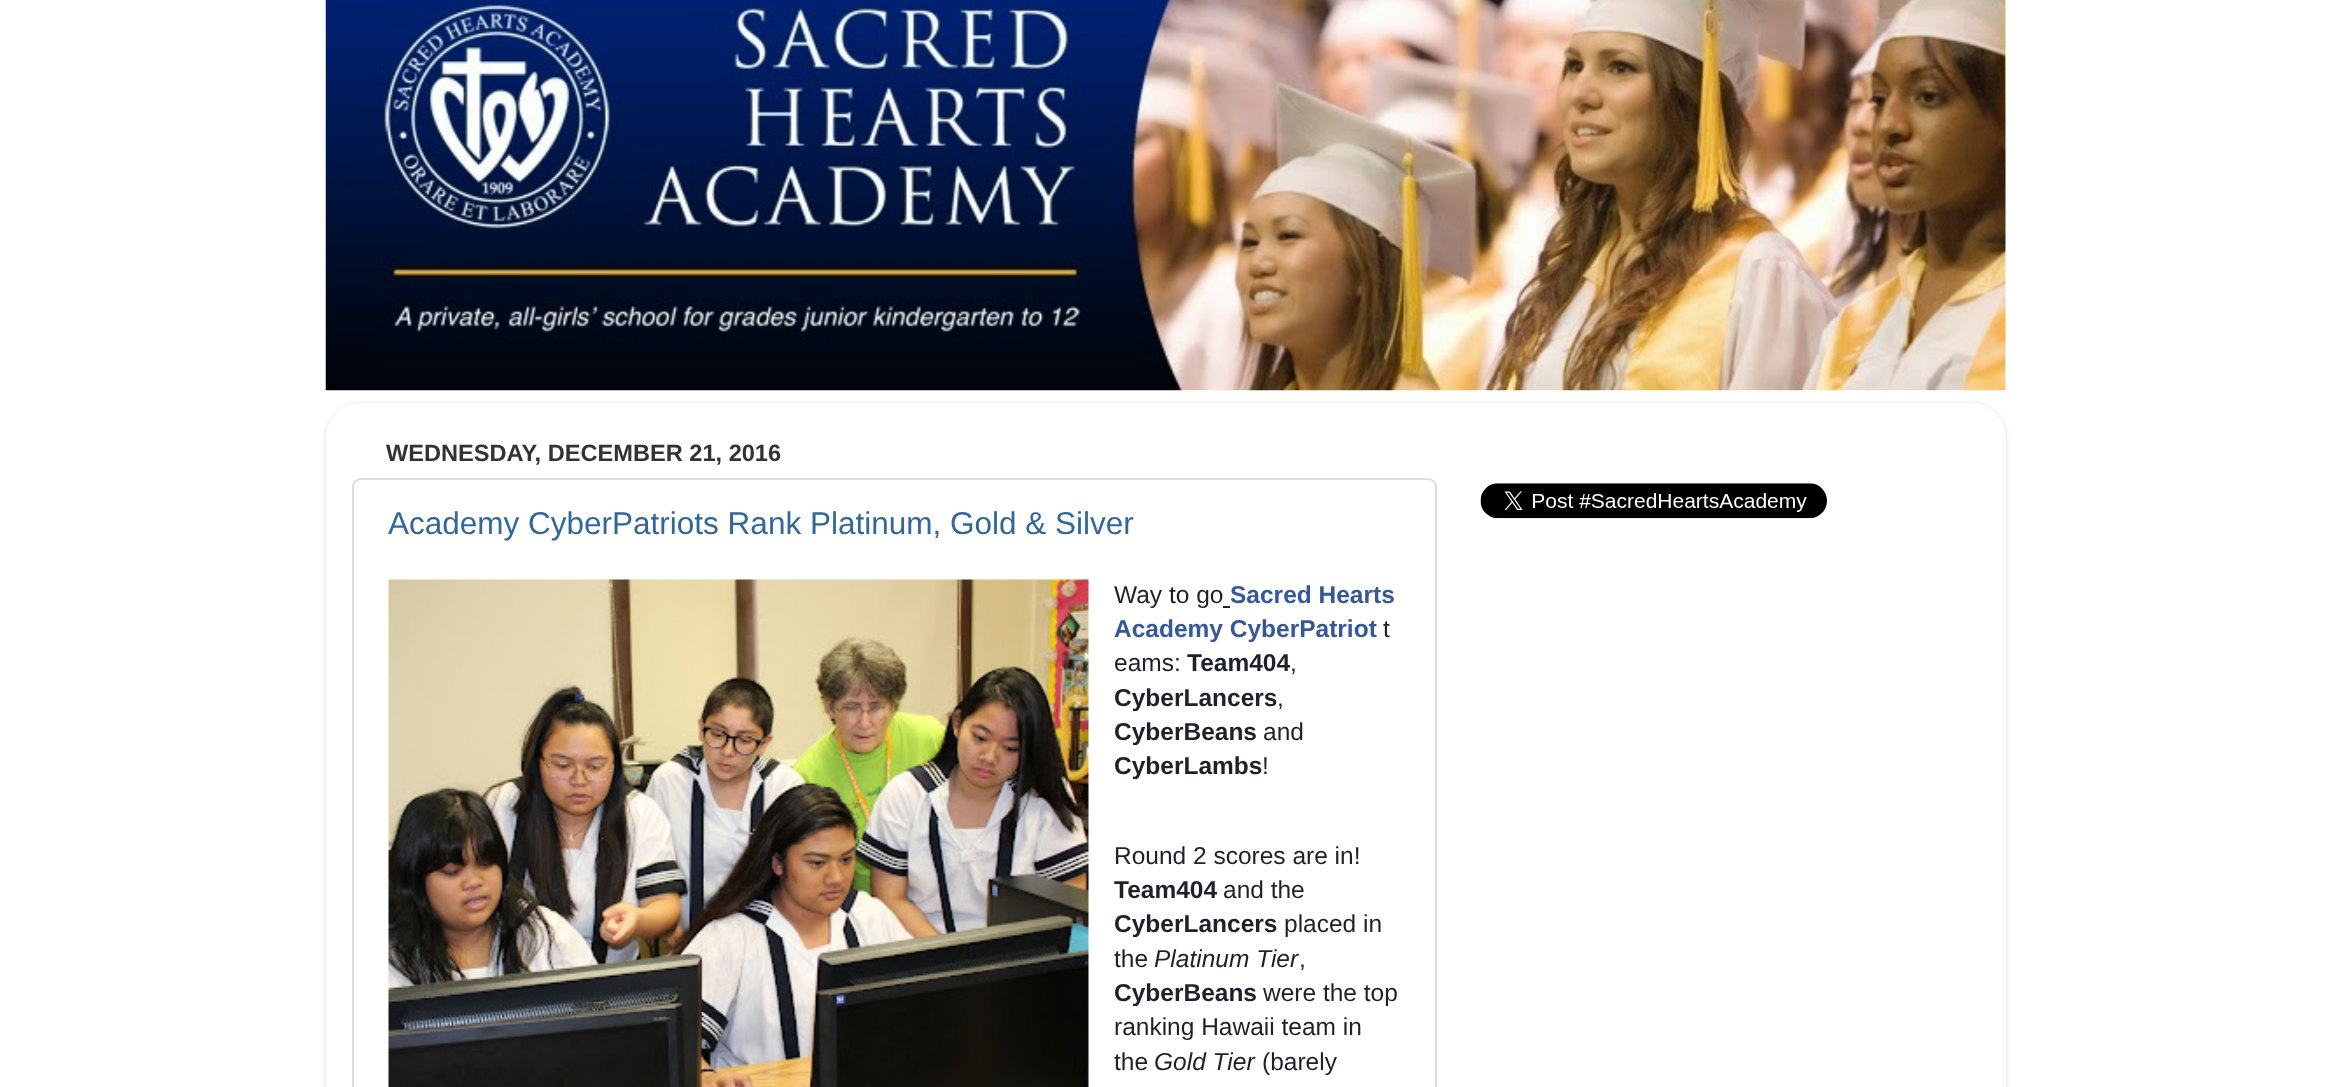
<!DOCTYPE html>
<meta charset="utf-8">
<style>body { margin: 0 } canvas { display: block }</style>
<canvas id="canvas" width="2328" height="1087"></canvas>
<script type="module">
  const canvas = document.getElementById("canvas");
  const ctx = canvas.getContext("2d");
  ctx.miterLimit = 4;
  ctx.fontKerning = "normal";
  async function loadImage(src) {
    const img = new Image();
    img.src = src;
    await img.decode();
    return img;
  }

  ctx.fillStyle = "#ffffff";
  ctx.fillRect(0, 0, 2328, 1087);
  ctx.drawImage(await loadImage("img1.png"), 325, 0, 1681, 391);
  ctx.save();
  ctx.beginPath();
  ctx.moveTo(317, 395);
  ctx.lineTo(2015, 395);
  ctx.lineTo(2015, 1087);
  ctx.lineTo(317, 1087);
  ctx.closePath();
  ctx.moveTo(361, 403);
  ctx.lineTo(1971, 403);
  ctx.bezierCurveTo(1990.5, 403, 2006, 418.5, 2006, 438);
  ctx.lineTo(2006, 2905);
  ctx.lineTo(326, 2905);
  ctx.lineTo(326, 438);
  ctx.bezierCurveTo(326, 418.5, 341.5, 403, 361, 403);
  ctx.closePath();
  ctx.clip("evenodd");
  ctx.fillStyle = "rgba(0, 0, 0, 0.15)";
  ctx.filter = "blur(2.5px)";
  ctx.beginPath();
  ctx.roundRect(326, 404, 1680, 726, 35);
  ctx.fill();
  ctx.filter = "none";
  ctx.restore();
  ctx.font = "bold 23.6px Liberation Sans";
  ctx.fillStyle = "#333333";
  ctx.fillText("WEDNESDAY, DECEMBER 21, 2016", 386, 461);
  ctx.beginPath();
  ctx.roundRect(353, 479, 1083, 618, 8);
  ctx.strokeStyle = "#dddddd";
  ctx.lineWidth = 2;
  ctx.stroke();
  ctx.font = "31.5px Liberation Sans";
  ctx.fillStyle = "#336699";
  ctx.fillText("Academy CyberPatriots Rank Platinum, Gold & Silver", 388, 534);
  ctx.drawImage(await loadImage("img2.png"), 388, 579, 701, 508);
  ctx.font = "24.5px Liberation Sans";
  ctx.fillStyle = "#1d2129";
  ctx.fillText("Way to go", 1114, 603);
  ctx.fillRect(1223, 606, 7, 2);
  ctx.font = "bold 24.5px Liberation Sans";
  ctx.fillStyle = "#365899";
  ctx.fillText("Sacred Hearts", 1230, 603);
  ctx.fillText("Academy CyberPatriot", 1114, 637);
  ctx.font = "24.5px Liberation Sans";
  ctx.fillStyle = "#1d2129";
  ctx.fillText("t", 1383, 637);
  ctx.fillText("eams:", 1114, 671);
  ctx.font = "bold 24.5px Liberation Sans";
  ctx.fillText("Team404", 1187, 671);
  ctx.font = "24.5px Liberation Sans";
  ctx.fillText(",", 1290, 671);
  ctx.font = "bold 24.5px Liberation Sans";
  ctx.fillText("CyberLancers", 1114, 706);
  ctx.font = "24.5px Liberation Sans";
  ctx.fillText(",", 1277, 706);
  ctx.font = "bold 24.5px Liberation Sans";
  ctx.fillText("CyberBeans", 1114, 740);
  ctx.font = "24.5px Liberation Sans";
  ctx.fillText("and", 1263, 740);
  ctx.font = "bold 24.5px Liberation Sans";
  ctx.fillText("CyberLambs", 1114, 774);
  ctx.font = "24.5px Liberation Sans";
  ctx.fillText("!", 1262, 774);
  ctx.fillText("Round 2 scores are in!", 1114, 864);
  ctx.font = "bold 24.5px Liberation Sans";
  ctx.fillText("Team404", 1114, 898);
  ctx.font = "24.5px Liberation Sans";
  ctx.fillText("and the", 1223, 898);
  ctx.font = "bold 24.5px Liberation Sans";
  ctx.fillText("CyberLancers", 1114, 932);
  ctx.font = "24.5px Liberation Sans";
  ctx.fillText("placed in", 1284, 932);
  ctx.fillText("the", 1114, 967);
  ctx.font = "italic 24.5px Liberation Sans";
  ctx.fillText("Platinum Tier", 1154, 967);
  ctx.font = "24.5px Liberation Sans";
  ctx.fillText(",", 1299, 967);
  ctx.font = "bold 24.5px Liberation Sans";
  ctx.fillText("CyberBeans", 1114, 1001);
  ctx.font = "24.5px Liberation Sans";
  ctx.fillText("were the top", 1263, 1001);
  ctx.fillText("ranking Hawaii team in", 1114, 1035);
  ctx.fillText("the", 1114, 1070);
  ctx.font = "italic 24.5px Liberation Sans";
  ctx.fillText("Gold Tier", 1154, 1070);
  ctx.font = "24.5px Liberation Sans";
  ctx.fillText("(barely", 1262, 1070);
  ctx.drawImage(await loadImage("img3.png"), 1480, 483, 347, 36);
</script>
